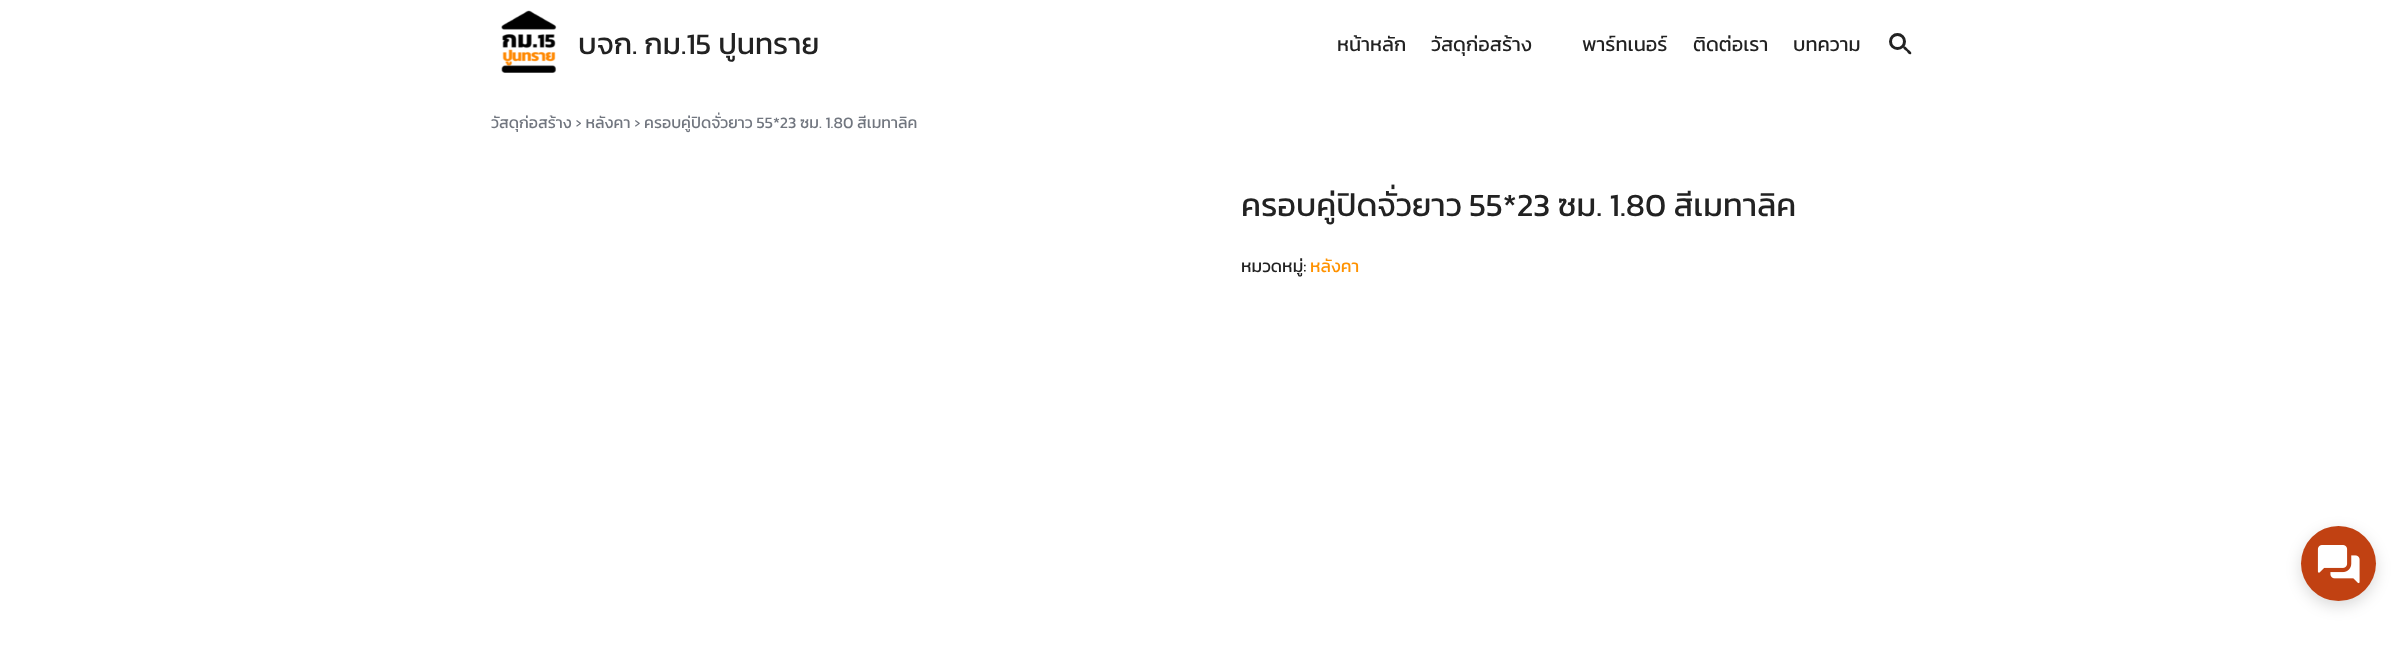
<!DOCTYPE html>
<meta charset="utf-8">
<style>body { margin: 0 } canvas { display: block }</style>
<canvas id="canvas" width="2406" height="661"></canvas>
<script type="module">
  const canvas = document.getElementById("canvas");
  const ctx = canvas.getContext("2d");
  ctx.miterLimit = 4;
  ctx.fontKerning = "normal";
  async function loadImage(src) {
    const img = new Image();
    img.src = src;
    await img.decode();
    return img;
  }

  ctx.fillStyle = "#ffffff";
  ctx.fillRect(0, 0, 2406, 661);
  ctx.drawImage(await loadImage("img1.png"), 501, 10, 56, 63);
  ctx.font = "30px Kanit";
  ctx.fillStyle = "#222222";
  ctx.fillText("บจก. กม.15 ปูนทราย", 578, 54);
  ctx.font = "20px Kanit";
  ctx.fillText("หน้าหลัก", 1337, 51);
  ctx.fillText("วัสดุก่อสร้าง", 1431, 51);
  ctx.fillText("พาร์ทเนอร์", 1582, 51);
  ctx.fillText("ติดต่อเรา", 1693, 51);
  ctx.fillText("บทความ", 1793, 51);
  ctx.beginPath();
  ctx.moveTo(1903.5, 46.5);
  ctx.bezierCurveTo(1905, 45, 1907.5, 48.5, 1908, 49.5);
  ctx.bezierCurveTo(1909, 50, 1912.5, 52.5, 1911, 54);
  ctx.bezierCurveTo(1909.5, 55.5, 1907, 52, 1906.5, 51);
  ctx.bezierCurveTo(1905.5, 50.5, 1902, 48, 1903.5, 46.5);
  ctx.closePath();
  ctx.fill();
  ctx.beginPath();
  ctx.arc(1897.5, 41.5, 7, 0, Math.PI * 2);
  ctx.strokeStyle = "#222222";
  ctx.lineWidth = 3;
  ctx.stroke();
  ctx.font = "16px Kanit";
  ctx.fillStyle = "#71767f";
  ctx.fillText("วัสดุก่อสร้าง › หลังคา › ครอบคู่ปิดจั่วยาว 55*23 ซม. 1.80 สีเมทาลิค", 491, 128);
  ctx.font = "32.5px Kanit";
  ctx.fillStyle = "#222222";
  ctx.fillText("ครอบคู่ปิดจั่วยาว 55*23 ซม. 1.80 สีเมทาลิค", 1241, 216);
  ctx.font = "17.5px Kanit";
  ctx.fillText("หมวดหมู่:", 1241, 272);
  ctx.fillStyle = "#ff9200";
  ctx.fillText("หลังคา", 1310, 272);
  ctx.fillStyle = "rgba(0, 0, 0, 0.15)";
  ctx.filter = "blur(7.5px)";
  ctx.beginPath();
  ctx.roundRect(2301, 531, 75, 75, 37.5);
  ctx.fill();
  ctx.filter = "none";
  ctx.fillStyle = "#c14112";
  ctx.beginPath();
  ctx.arc(2338.5, 563.5, 37.5, 0, Math.PI * 2);
  ctx.fill();
  ctx.drawImage(await loadImage("img2.png"), 2317, 545, 43, 39);
</script>
